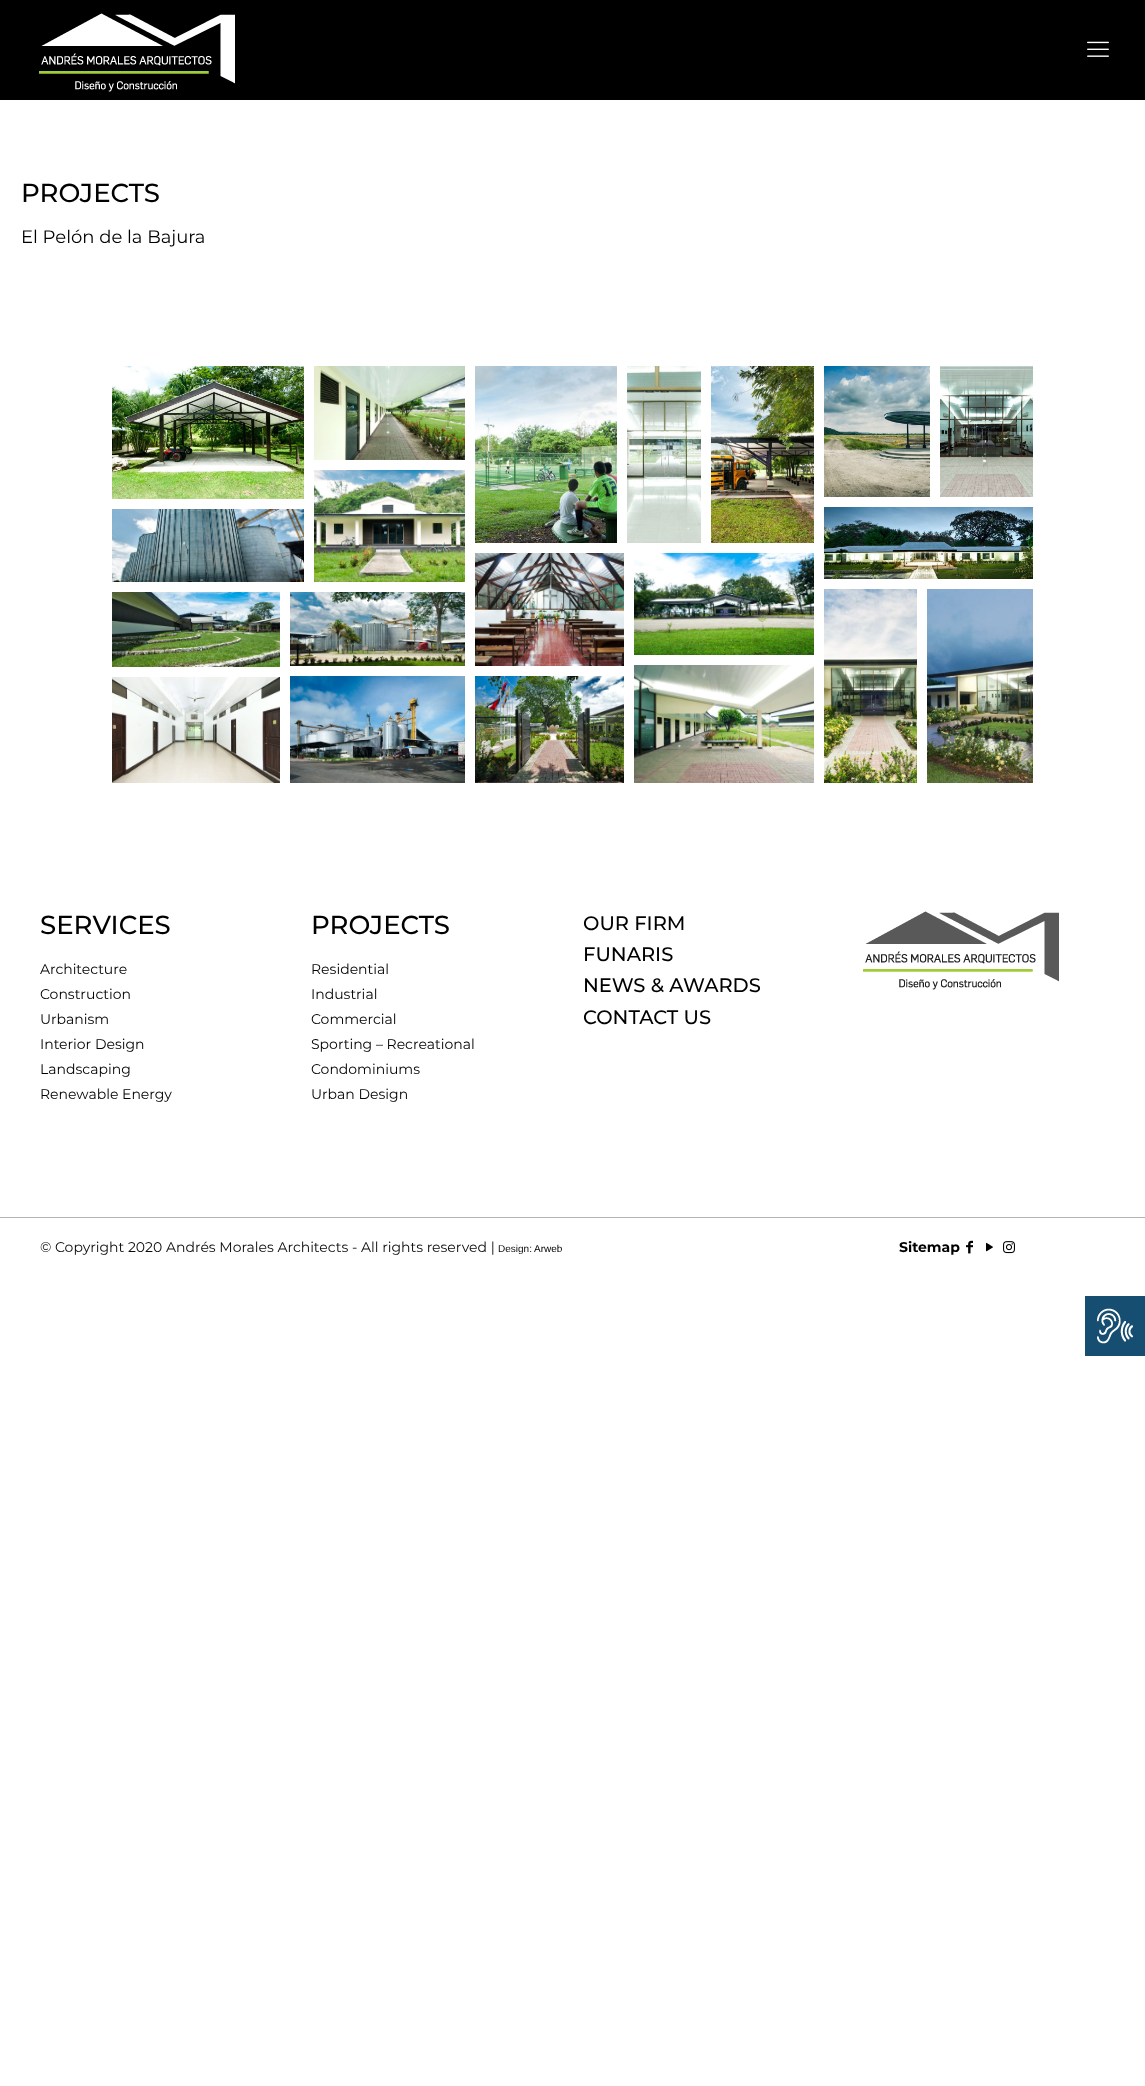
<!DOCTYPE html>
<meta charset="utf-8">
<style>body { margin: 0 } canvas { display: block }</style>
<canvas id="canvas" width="1145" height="2086"></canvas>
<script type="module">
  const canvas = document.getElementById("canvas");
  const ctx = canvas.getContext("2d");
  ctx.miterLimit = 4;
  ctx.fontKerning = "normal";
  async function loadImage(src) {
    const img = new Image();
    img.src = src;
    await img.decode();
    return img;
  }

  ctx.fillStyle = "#ffffff";
  ctx.fillRect(0, 0, 1145, 2086);
  ctx.fillStyle = "#000000";
  ctx.fillRect(0, 0, 1145, 100);
  ctx.drawImage(await loadImage("img1.png"), 39, 13, 196, 79);
  ctx.drawImage(await loadImage("img2.png"), 1087, 41, 22, 16);
  ctx.font = "500 26px Montserrat";
  ctx.fillText("PROJECTS", 21, 202);
  ctx.font = "18px Montserrat";
  ctx.fillText("El Pelón de la Bajura", 21, 243);
  ctx.drawImage(await loadImage("img3.png"), 112, 366, 192, 133);
  ctx.drawImage(await loadImage("img4.png"), 314, 366, 151, 94);
  ctx.drawImage(await loadImage("img5.png"), 475, 366, 142, 177);
  ctx.drawImage(await loadImage("img6.png"), 627, 366, 74, 177);
  ctx.drawImage(await loadImage("img7.png"), 711, 366, 103, 177);
  ctx.drawImage(await loadImage("img8.png"), 824, 366, 106, 131);
  ctx.drawImage(await loadImage("img9.png"), 940, 366, 93, 131);
  ctx.drawImage(await loadImage("img10.png"), 112, 509, 192, 73);
  ctx.drawImage(await loadImage("img11.png"), 314, 470, 151, 112);
  ctx.drawImage(await loadImage("img12.png"), 824, 507, 209, 72);
  ctx.drawImage(await loadImage("img13.png"), 112, 592, 168, 75);
  ctx.drawImage(await loadImage("img14.png"), 290, 592, 175, 74);
  ctx.drawImage(await loadImage("img15.png"), 475, 553, 149, 113);
  ctx.drawImage(await loadImage("img16.png"), 634, 553, 180, 102);
  ctx.drawImage(await loadImage("img17.png"), 824, 589, 93, 194);
  ctx.drawImage(await loadImage("img18.png"), 927, 589, 106, 194);
  ctx.drawImage(await loadImage("img19.png"), 112, 677, 168, 106);
  ctx.drawImage(await loadImage("img20.png"), 290, 676, 175, 107);
  ctx.drawImage(await loadImage("img21.png"), 475, 676, 149, 107);
  ctx.drawImage(await loadImage("img22.png"), 634, 665, 180, 118);
  ctx.font = "500 26px Montserrat";
  ctx.fillText("SERVICES", 40, 934);
  ctx.font = "14px Montserrat";
  ctx.fillText("Architecture", 40, 974);
  ctx.fillText("Construction", 40, 999);
  ctx.fillText("Urbanism", 40, 1024);
  ctx.fillText("Interior Design", 40, 1049);
  ctx.fillText("Landscaping", 40, 1074);
  ctx.fillText("Renewable Energy", 40, 1099);
  ctx.font = "500 26px Montserrat";
  ctx.fillText("PROJECTS", 311, 934);
  ctx.font = "14px Montserrat";
  ctx.fillText("Residential", 311, 974);
  ctx.fillText("Industrial", 311, 999);
  ctx.fillText("Commercial", 311, 1024);
  ctx.fillText("Sporting – Recreational", 311, 1049);
  ctx.fillText("Condominiums", 311, 1074);
  ctx.fillText("Urban Design", 311, 1099);
  ctx.font = "500 19.5px Montserrat";
  ctx.fillText("OUR FIRM", 583, 930);
  ctx.fillText("FUNARIS", 583, 961);
  ctx.fillText("NEWS & AWARDS", 583, 992);
  ctx.fillText("CONTACT US", 583, 1024);
  ctx.drawImage(await loadImage("img23.png"), 863, 911, 196, 79);
  ctx.fillStyle = "#b2b2b2";
  ctx.fillRect(0, 1217, 1145, 1);
  ctx.font = "14px Montserrat";
  ctx.fillStyle = "#0a0a0a";
  ctx.fillText("© Copyright 2020 Andrés Morales Architects - All rights reserved |", 40, 1252);
  ctx.font = "10px Liberation Sans";
  ctx.fillText("Design:", 498, 1252);
  ctx.fillStyle = "#000000";
  ctx.fillText("Arweb", 534, 1252);
  ctx.font = "bold 14px Montserrat";
  ctx.fillText("Sitemap", 899, 1252);
  ctx.drawImage(await loadImage("img24.png"), 966, 1240, 7, 14);
  ctx.drawImage(await loadImage("img25.png"), 986, 1242, 7, 10);
  ctx.drawImage(await loadImage("img26.png"), 1003, 1241, 12, 13);
  ctx.drawImage(await loadImage("img27.png"), 1085, 1296, 60, 60);
</script>
